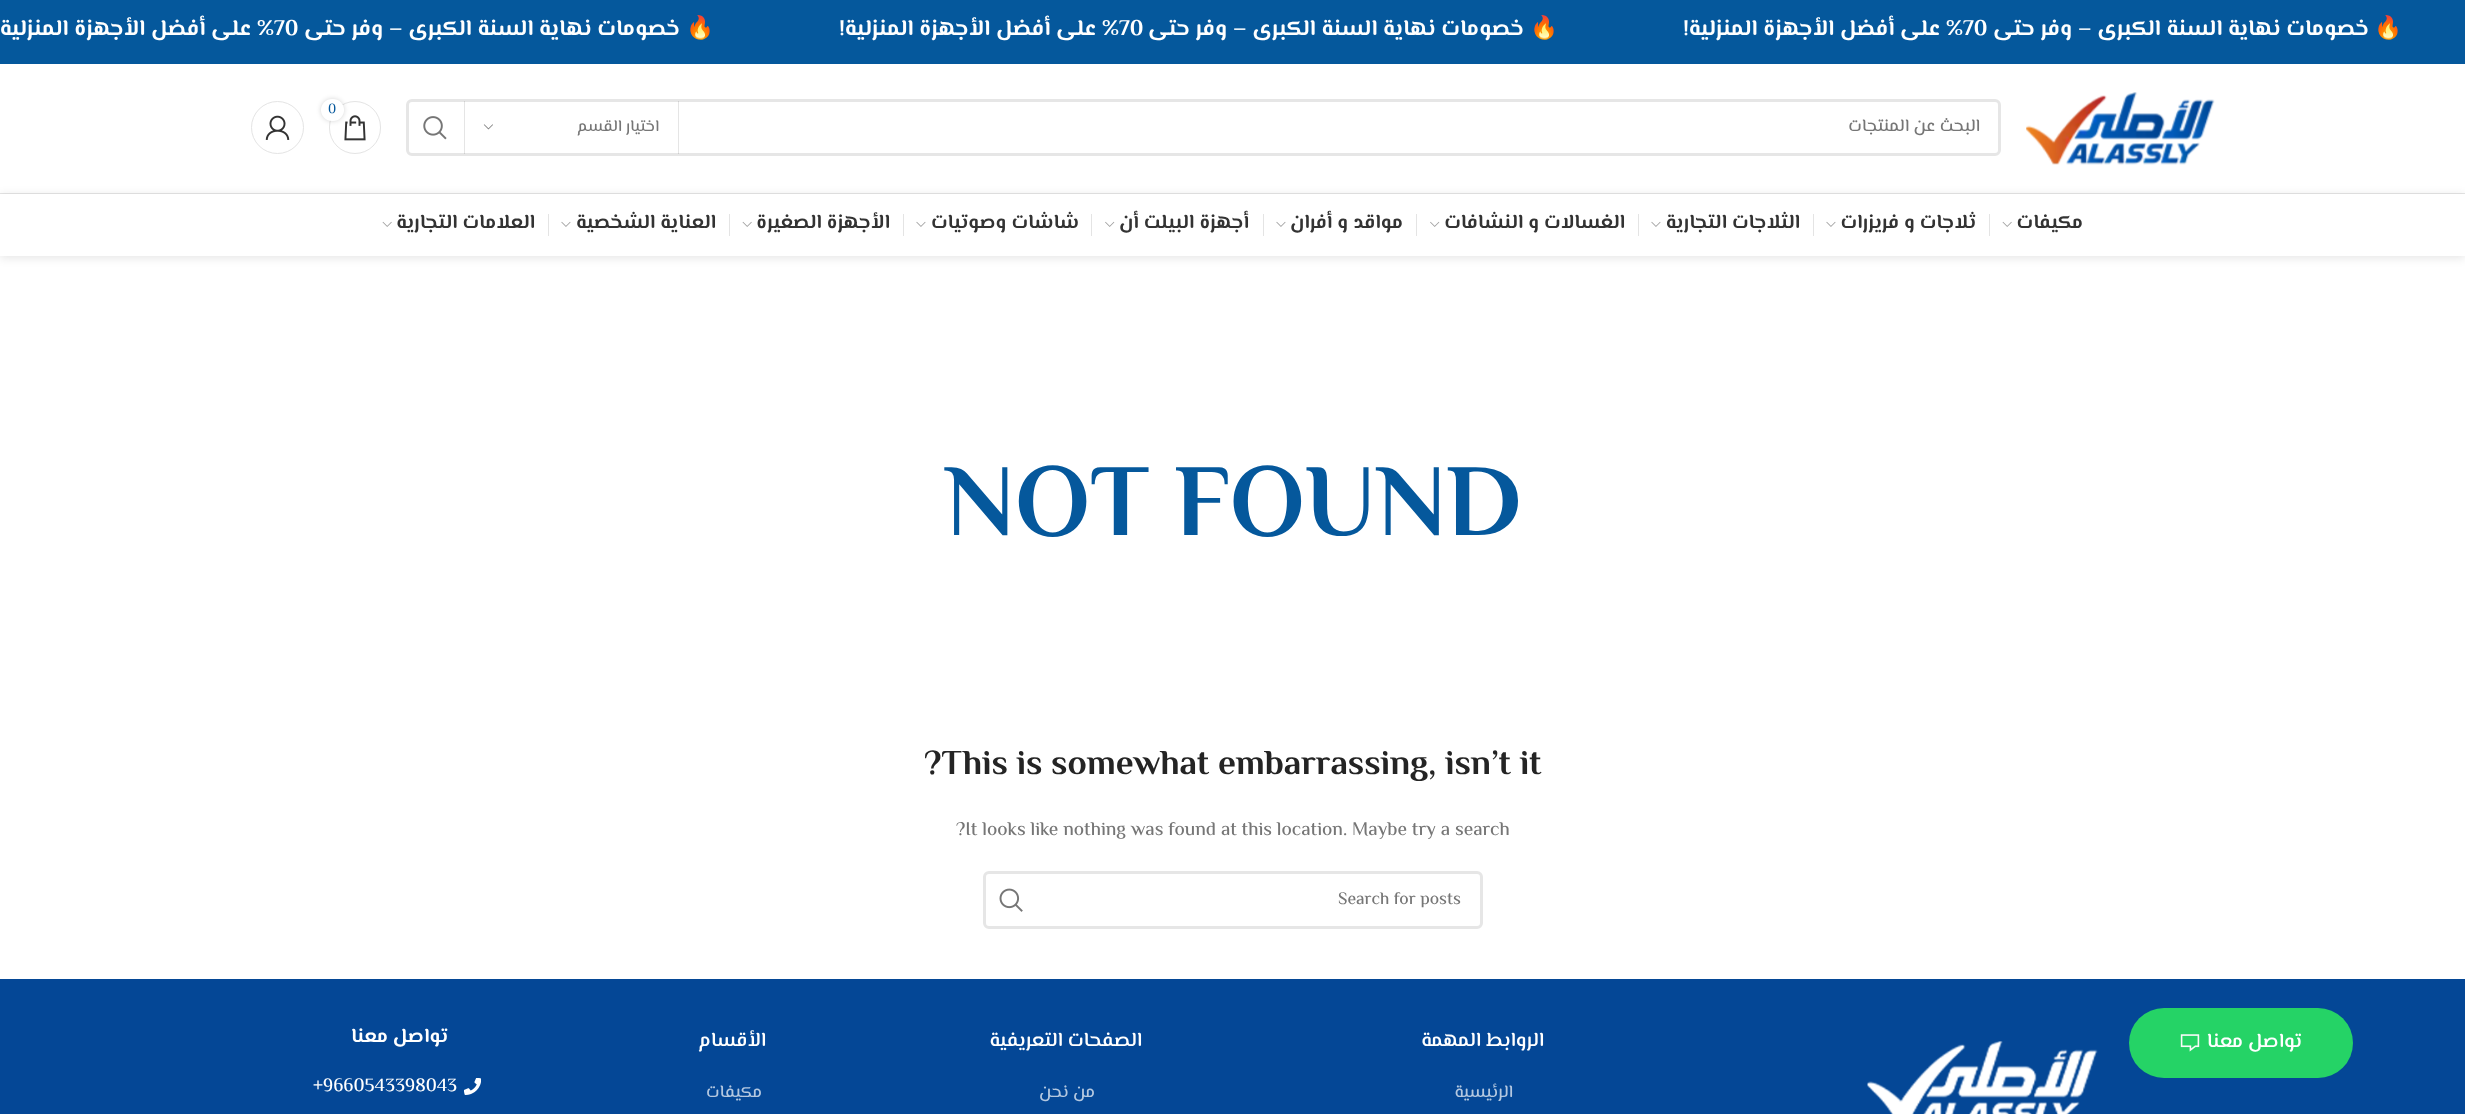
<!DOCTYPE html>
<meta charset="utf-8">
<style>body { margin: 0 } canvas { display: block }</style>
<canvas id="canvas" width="2465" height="1114"></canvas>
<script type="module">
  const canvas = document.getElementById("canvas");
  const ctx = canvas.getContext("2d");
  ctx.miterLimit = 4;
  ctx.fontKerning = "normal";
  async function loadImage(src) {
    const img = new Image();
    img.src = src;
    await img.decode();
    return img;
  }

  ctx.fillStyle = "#ffffff";
  ctx.fillRect(0, 0, 2465, 1114);
  ctx.fillStyle = "#05589c";
  ctx.fillRect(0, 0, 2465, 64);
  ctx.direction = "rtl";
  ctx.font = "bold 22.5px Noto Color Emoji";
  ctx.fillStyle = "#ffffff";
  ctx.fillText("🔥", 2402, 35);
  ctx.font = "bold 22.5px El Messiri";
  ctx.fillText("خصومات نهاية السنة الكبرى – وفر حتى", 2369, 35);
  ctx.direction = "ltr";
  ctx.fillText("70", 1963, 35);
  ctx.direction = "rtl";
  ctx.fillText("% على أفضل الأجهزة المنزلية!", 1963, 35);
  ctx.font = "bold 22.5px Noto Color Emoji";
  ctx.fillText("🔥", 1558, 35);
  ctx.font = "bold 22.5px El Messiri";
  ctx.fillText("خصومات نهاية السنة الكبرى – وفر حتى", 1524, 35);
  ctx.direction = "ltr";
  ctx.fillText("70", 1119, 35);
  ctx.direction = "rtl";
  ctx.fillText("% على أفضل الأجهزة المنزلية!", 1119, 35);
  ctx.font = "bold 22.5px Noto Color Emoji";
  ctx.fillText("🔥", 714, 35);
  ctx.font = "bold 22.5px El Messiri";
  ctx.fillText("خصومات نهاية السنة الكبرى – وفر حتى", 680, 35);
  ctx.direction = "ltr";
  ctx.fillText("70", 274, 35);
  ctx.direction = "rtl";
  ctx.fillText("% على أفضل الأجهزة المنزلية!", 274, 35);
  ctx.fillStyle = "#044796";
  ctx.fillRect(0, 979, 2465, 135);
  ctx.fillStyle = "#25d366";
  ctx.beginPath();
  ctx.roundRect(2129, 1008, 224, 70, 35);
  ctx.fill();
  ctx.font = "600 20px El Messiri";
  ctx.fillStyle = "#ffffff";
  ctx.fillText("تواصل معنا", 2302, 1047);
  ctx.drawImage(await loadImage("img1.png"), 2180, 1034, 20, 18);
  ctx.fillStyle = "#e6e6e6";
  ctx.fillRect(0, 193, 2465, 1);
  ctx.drawImage(await loadImage("img2.png"), 2026, 92, 189, 73);
  ctx.beginPath();
  ctx.roundRect(329.5, 101.5, 51, 52, 25.5);
  ctx.strokeStyle = "#e4e4e4";
  ctx.stroke();
  ctx.drawImage(await loadImage("img3.png"), 344, 115, 22, 26);
  ctx.fillStyle = "rgba(0, 0, 0, 0.17)";
  ctx.filter = "blur(2.5px)";
  ctx.beginPath();
  ctx.roundRect(321, 99, 23, 22, 11);
  ctx.fill();
  ctx.filter = "none";
  ctx.fillStyle = "#ffffff";
  ctx.beginPath();
  ctx.roundRect(321, 99, 23, 22, 11);
  ctx.fill();
  ctx.direction = "ltr";
  ctx.font = "14px El Messiri";
  ctx.fillStyle = "#05589c";
  ctx.fillText("0", 328, 113);
  ctx.beginPath();
  ctx.arc(277.5, 127.5, 26, 0, Math.PI * 2);
  ctx.stroke();
  ctx.drawImage(await loadImage("img4.png"), 265, 115, 25, 25);
  ctx.beginPath();
  ctx.roundRect(407.5, 100.5, 1592, 54, 4.5);
  ctx.strokeStyle = "#e6e6e6";
  ctx.lineWidth = 3;
  ctx.stroke();
  ctx.direction = "rtl";
  ctx.font = "500 17.5px El Messiri";
  ctx.fillStyle = "#767676";
  ctx.fillText("البحث عن المنتجات", 1980, 131);
  ctx.fillStyle = "rgba(0, 0, 0, 0.1)";
  ctx.fillRect(678, 101, 1, 53);
  ctx.fillRect(464, 101, 1, 53);
  ctx.font = "500 16.25px El Messiri";
  ctx.fillStyle = "#767676";
  ctx.fillText("اختيار القسم", 659, 131);
  ctx.drawImage(await loadImage("img5.png"), 483, 124, 10, 6);
  ctx.drawImage(await loadImage("img6.png"), 423, 116, 24, 24);
  ctx.save();
  ctx.beginPath();
  ctx.moveTo(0, 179);
  ctx.lineTo(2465, 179);
  ctx.lineTo(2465, 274);
  ctx.lineTo(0, 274);
  ctx.closePath();
  ctx.moveTo(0, 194);
  ctx.lineTo(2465, 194);
  ctx.lineTo(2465, 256);
  ctx.lineTo(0, 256);
  ctx.closePath();
  ctx.clip("evenodd");
  ctx.fillStyle = "rgba(0, 0, 0, 0.1)";
  ctx.filter = "blur(5px)";
  ctx.beginPath();
  ctx.rect(0, 195, 2465, 63);
  ctx.fill();
  ctx.filter = "none";
  ctx.restore();
  ctx.font = "bold 20px El Messiri";
  ctx.fillStyle = "#333333";
  ctx.fillText("مكيفات", 2083, 228);
  ctx.drawImage(await loadImage("img7.png"), 2002, 221, 10, 6);
  ctx.fillStyle = "#e4e4e4";
  ctx.fillRect(1989, 214, 1, 22);
  ctx.fillStyle = "#333333";
  ctx.fillText("ثلاجات و فريزرات", 1976, 228);
  ctx.drawImage(await loadImage("img8.png"), 1826, 221, 10, 6);
  ctx.fillStyle = "#e4e4e4";
  ctx.fillRect(1813, 214, 1, 22);
  ctx.fillStyle = "#333333";
  ctx.fillText("الثلاجات التجارية", 1800, 228);
  ctx.drawImage(await loadImage("img8.png"), 1651, 221, 10, 6);
  ctx.fillStyle = "#e4e4e4";
  ctx.fillRect(1638, 214, 1, 22);
  ctx.fillStyle = "#333333";
  ctx.fillText("الغسالات و النشافات", 1625, 228);
  ctx.drawImage(await loadImage("img9.png"), 1430, 221, 10, 6);
  ctx.fillStyle = "#e4e4e4";
  ctx.fillRect(1416, 214, 1, 22);
  ctx.fillStyle = "#333333";
  ctx.fillText("مواقد و أفران", 1403, 228);
  ctx.drawImage(await loadImage("img8.png"), 1276, 221, 10, 6);
  ctx.fillStyle = "#e4e4e4";
  ctx.fillRect(1263, 214, 1, 22);
  ctx.fillStyle = "#333333";
  ctx.fillText("أجهزة البيلت أن", 1249, 228);
  ctx.drawImage(await loadImage("img9.png"), 1105, 221, 10, 6);
  ctx.fillStyle = "#e4e4e4";
  ctx.fillRect(1091, 214, 1, 22);
  ctx.fillStyle = "#333333";
  ctx.fillText("شاشات وصوتيات", 1079, 228);
  ctx.drawImage(await loadImage("img8.png"), 916, 221, 10, 6);
  ctx.fillStyle = "#e4e4e4";
  ctx.fillRect(903, 214, 1, 22);
  ctx.fillStyle = "#333333";
  ctx.fillText("الأجهزة الصغيرة", 890, 228);
  ctx.drawImage(await loadImage("img7.png"), 742, 221, 10, 6);
  ctx.fillStyle = "#e4e4e4";
  ctx.fillRect(729, 214, 1, 22);
  ctx.fillStyle = "#333333";
  ctx.fillText("العناية الشخصية", 716, 228);
  ctx.drawImage(await loadImage("img8.png"), 561, 221, 10, 6);
  ctx.fillStyle = "#e4e4e4";
  ctx.fillRect(548, 214, 1, 22);
  ctx.fillStyle = "#333333";
  ctx.fillText("العلامات التجارية", 535, 228);
  ctx.drawImage(await loadImage("img7.png"), 382, 221, 10, 6);
  ctx.direction = "ltr";
  ctx.font = "bold 102.5px El Messiri";
  ctx.fillStyle = "#05589c";
  ctx.fillText("NOT FOUND", 944, 535);
  ctx.font = "bold 35px El Messiri";
  ctx.fillStyle = "#242424";
  ctx.fillText("?This is somewhat embarrassing, isn’t it", 924, 774);
  ctx.font = "500 19.25px El Messiri";
  ctx.fillStyle = "#767676";
  ctx.fillText("?It looks like nothing was found at this location. Maybe try a search", 956, 835);
  ctx.beginPath();
  ctx.roundRect(984.5, 872.5, 497, 55, 4.5);
  ctx.stroke();
  ctx.font = "500 17.5px El Messiri";
  ctx.fillText("Search for posts", 1338, 904);
  ctx.drawImage(await loadImage("img10.png"), 999, 888, 24, 24);
  ctx.drawImage(await loadImage("img11.png"), 1867, 1041, 231, 73);
  ctx.direction = "rtl";
  ctx.font = "600 20px El Messiri";
  ctx.fillStyle = "#ffffff";
  ctx.fillText("الروابط المهمة", 1544, 1046);
  ctx.font = "500 17.5px El Messiri";
  ctx.fillStyle = "#b4c8e0";
  ctx.fillText("الرئيسية", 1513, 1097);
  ctx.font = "600 20px El Messiri";
  ctx.fillStyle = "#ffffff";
  ctx.fillText("الصفحات التعريفية", 1142, 1046);
  ctx.font = "500 17.5px El Messiri";
  ctx.fillStyle = "#b4c8e0";
  ctx.fillText("من نحن", 1095, 1097);
  ctx.font = "600 20px El Messiri";
  ctx.fillStyle = "#ffffff";
  ctx.fillText("الأقسام", 766, 1046);
  ctx.font = "500 17.5px El Messiri";
  ctx.fillStyle = "#b4c8e0";
  ctx.fillText("مكيفات", 762, 1097);
  ctx.font = "bold 20px El Messiri";
  ctx.fillStyle = "#ffffff";
  ctx.fillText("تواصل معنا", 448, 1042);
  ctx.drawImage(await loadImage("img12.png"), 464, 1078, 17, 17);
  ctx.direction = "ltr";
  ctx.font = "500 18.75px El Messiri";
  ctx.fillText("+9660543398043", 313, 1091);
</script>
